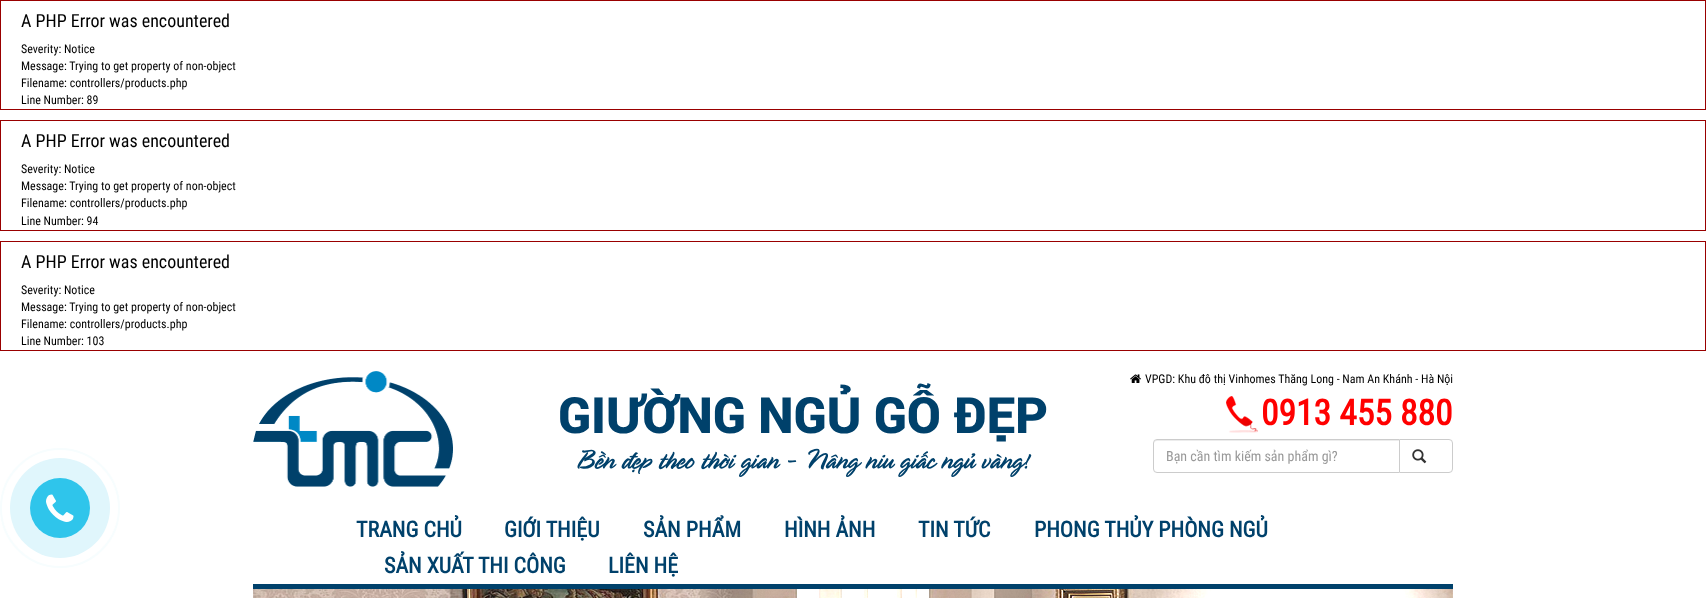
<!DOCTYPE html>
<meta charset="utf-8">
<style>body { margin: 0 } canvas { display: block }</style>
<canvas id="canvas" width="1706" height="598"></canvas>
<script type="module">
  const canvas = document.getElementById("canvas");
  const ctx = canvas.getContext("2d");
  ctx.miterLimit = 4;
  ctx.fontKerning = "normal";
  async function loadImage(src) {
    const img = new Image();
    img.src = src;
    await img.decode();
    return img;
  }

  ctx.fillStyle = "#ffffff";
  ctx.fillRect(0, 0, 1706, 598);
  ctx.strokeStyle = "#990000";
  ctx.strokeRect(0.5, 0.5, 1705, 109);
  ctx.font = "18px Roboto Condensed";
  ctx.fillStyle = "#000000";
  ctx.fillText("A PHP Error was encountered", 21, 27);
  ctx.font = "12px Roboto Condensed";
  ctx.fillText("Severity: Notice", 21, 53);
  ctx.fillText("Message: Trying to get property of non-object", 21, 70);
  ctx.fillText("Filename: controllers/products.php", 21, 87);
  ctx.fillText("Line Number: 89", 21, 104);
  ctx.strokeRect(0.5, 120.5, 1705, 110);
  ctx.font = "18px Roboto Condensed";
  ctx.fillText("A PHP Error was encountered", 21, 147);
  ctx.font = "12px Roboto Condensed";
  ctx.fillText("Severity: Notice", 21, 173);
  ctx.fillText("Message: Trying to get property of non-object", 21, 190);
  ctx.fillText("Filename: controllers/products.php", 21, 207);
  ctx.fillText("Line Number: 94", 21, 225);
  ctx.strokeRect(0.5, 241.5, 1705, 109);
  ctx.font = "18px Roboto Condensed";
  ctx.fillText("A PHP Error was encountered", 21, 268);
  ctx.font = "12px Roboto Condensed";
  ctx.fillText("Severity: Notice", 21, 294);
  ctx.fillText("Message: Trying to get property of non-object", 21, 311);
  ctx.fillText("Filename: controllers/products.php", 21, 328);
  ctx.fillText("Line Number: 103", 21, 345);
  ctx.fillStyle = "#e0f6fc";
  ctx.beginPath();
  ctx.arc(60, 508, 50, 0, Math.PI * 2);
  ctx.fill();
  ctx.fillStyle = "#2fc5eb";
  ctx.beginPath();
  ctx.arc(60, 508, 30, 0, Math.PI * 2);
  ctx.fill();
  ctx.drawImage(await loadImage("img1.png"), 46, 494, 28, 28);
  ctx.beginPath();
  ctx.arc(60, 508, 59, 0, Math.PI * 2);
  ctx.strokeStyle = "#f7fdfe";
  ctx.lineWidth = 2;
  ctx.stroke();
  ctx.drawImage(await loadImage("img2.png"), 253, 371, 200, 116);
  ctx.font = "900 50px Roboto";
  ctx.fillStyle = "#00416b";
  ctx.fillText("GIƯỜNG NGỦ GỖ ĐẸP", 558, 433);
  ctx.font = "bold 28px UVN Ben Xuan";
  ctx.fillText("Bền đẹp theo thời gian - Nâng niu giấc ngủ vàng!", 576, 468);
  ctx.drawImage(await loadImage("img3.png"), 1130, 374, 11, 9);
  ctx.font = "12px Roboto Condensed";
  ctx.fillStyle = "#000000";
  ctx.fillText("VPGD: Khu đô thị Vinhomes Thăng Long - Nam An Khánh - Hà Nội", 1145, 383);
  ctx.drawImage(await loadImage("img4.png"), 1226, 396, 32, 37);
  ctx.font = "bold 35.5px Roboto Condensed";
  ctx.fillStyle = "#ff0000";
  ctx.fillText("0913 455 880", 1261, 425);
  ctx.beginPath();
  ctx.roundRect(1399.5, 439.5, 53, 33, [0, 3.5, 3.5, 0]);
  ctx.strokeStyle = "#cccccc";
  ctx.lineWidth = 1;
  ctx.stroke();
  ctx.fillStyle = "#ffffff";
  ctx.beginPath();
  ctx.roundRect(1153, 439, 247, 34, [4, 0, 0, 4]);
  ctx.fill();
  ctx.fillStyle = "#ececec";
  ctx.beginPath();
  ctx.moveTo(1157, 441);
  ctx.lineTo(1399, 441);
  ctx.lineTo(1399, 440);
  ctx.lineTo(1157, 440);
  ctx.bezierCurveTo(1155, 440, 1154, 442, 1154, 444);
  ctx.bezierCurveTo(1154, 442, 1155, 441, 1157, 441);
  ctx.closePath();
  ctx.fill();
  ctx.beginPath();
  ctx.roundRect(1153.5, 439.5, 246, 33, [3.5, 0, 0, 3.5]);
  ctx.stroke();
  ctx.font = "14px Roboto Condensed";
  ctx.fillStyle = "#999999";
  ctx.fillText("Bạn cần tìm kiếm sản phẩm gì?", 1166, 461);
  ctx.drawImage(await loadImage("img5.png"), 1412, 449, 15, 15);
  ctx.font = "bold 22px Roboto Condensed";
  ctx.fillStyle = "#00416b";
  ctx.fillText("TRANG CHỦ", 356, 537);
  ctx.fillText("GIỚI THIỆU", 504, 537);
  ctx.fillText("SẢN PHẨM", 643, 537);
  ctx.fillText("HÌNH ẢNH", 784, 537);
  ctx.fillText("TIN TỨC", 918, 537);
  ctx.fillText("PHONG THỦY PHÒNG NGỦ", 1034, 537);
  ctx.fillText("SẢN XUẤT THI CÔNG", 384, 573);
  ctx.fillText("LIÊN HỆ", 608, 573);
  ctx.fillRect(253, 584, 1200, 5);
  ctx.drawImage(await loadImage("img6.png"), 253, 589, 1200, 9);
</script>
